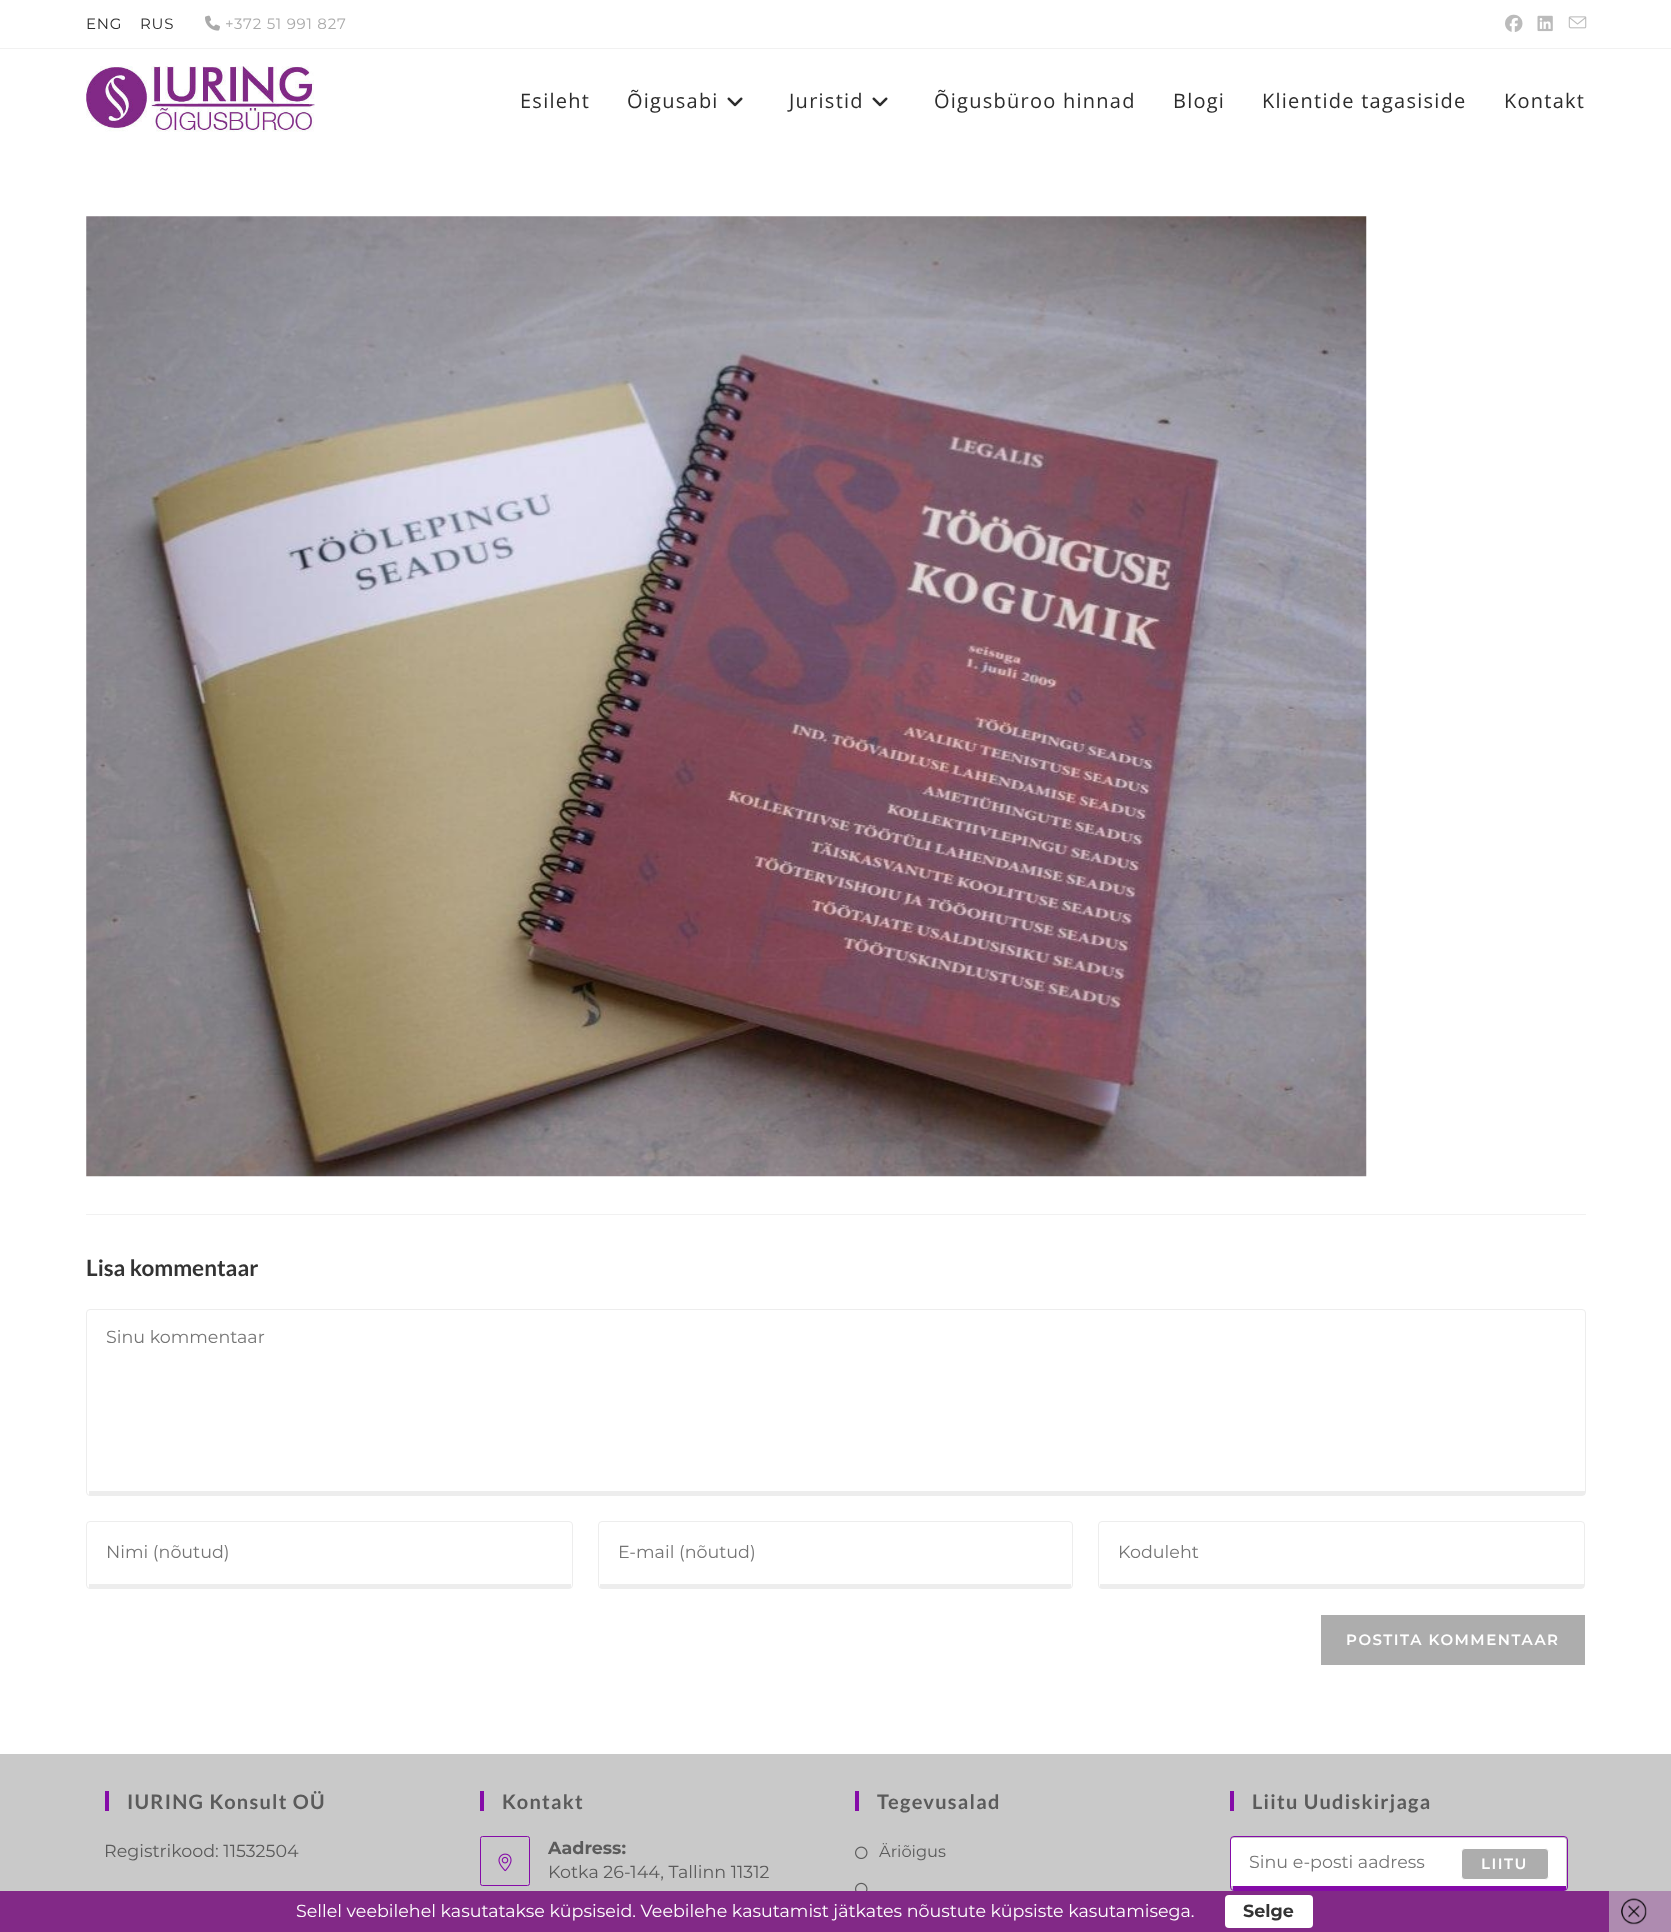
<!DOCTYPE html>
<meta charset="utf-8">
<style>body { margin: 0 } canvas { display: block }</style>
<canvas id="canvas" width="1671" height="1932"></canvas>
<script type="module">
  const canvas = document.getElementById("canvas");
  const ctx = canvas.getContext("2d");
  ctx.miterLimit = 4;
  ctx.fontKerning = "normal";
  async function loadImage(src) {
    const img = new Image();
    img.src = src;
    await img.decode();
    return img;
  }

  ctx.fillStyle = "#ffffff";
  ctx.fillRect(0, 0, 1671, 1932);
  ctx.fillStyle = "#f1f1f1";
  ctx.fillRect(0, 48, 1671, 1);
  ctx.letterSpacing = "0.75px";
  ctx.font = "15px Montserrat";
  ctx.fillStyle = "#2c2c2c";
  ctx.fillText("ENG", 86, 29);
  ctx.fillText("RUS", 140, 29);
  ctx.drawImage(await loadImage("img1.png"), 205, 15, 15, 16);
  ctx.fillStyle = "#aaaaaa";
  ctx.fillText("+372 51 991 827", 225, 29);
  ctx.drawImage(await loadImage("img2.png"), 1505, 14, 18, 18);
  ctx.drawImage(await loadImage("img3.png"), 1537, 15, 16, 17);
  ctx.drawImage(await loadImage("img4.png"), 1568, 16, 19, 13);
  ctx.drawImage(await loadImage("img5.png"), 86, 66, 229, 66);
  ctx.letterSpacing = "1.25px";
  ctx.font = "20px Open Sans";
  ctx.fillStyle = "#2c2c2c";
  ctx.fillText("Esileht", 520, 108);
  ctx.fillText("Õigusabi", 627, 108);
  ctx.drawImage(await loadImage("img6.png"), 727, 97, 16, 10);
  ctx.fillText("Juristid", 789, 108);
  ctx.drawImage(await loadImage("img6.png"), 872, 97, 16, 10);
  ctx.fillText("Õigusbüroo hinnad", 934, 108);
  ctx.fillText("Blogi", 1173, 108);
  ctx.fillText("Klientide tagasiside", 1262, 108);
  ctx.fillText("Kontakt", 1504, 108);
  ctx.drawImage(await loadImage("img7.png"), 86, 216, 1281, 961);
  ctx.fillStyle = "#f1f1f1";
  ctx.fillRect(86, 1214, 1500, 1);
  ctx.letterSpacing = "0px";
  ctx.font = "bold 22.5px Lato";
  ctx.fillStyle = "#333333";
  ctx.fillText("Lisa kommentaar", 86, 1276);
  ctx.beginPath();
  ctx.roundRect(86.5, 1309.5, 1499, 186, 3.5);
  ctx.strokeStyle = "#ededed";
  ctx.stroke();
  ctx.fillStyle = "#ededed";
  ctx.fillRect(89, 1491, 1496, 4);
  ctx.font = "17.5px Montserrat";
  ctx.fillStyle = "#757575";
  ctx.fillText("Sinu kommentaar", 106, 1343);
  ctx.beginPath();
  ctx.roundRect(86.5, 1521.5, 486, 67, 3.5);
  ctx.stroke();
  ctx.fillStyle = "#ededed";
  ctx.fillRect(89, 1584, 482, 4);
  ctx.fillStyle = "#757575";
  ctx.fillText("Nimi (nõutud)", 106, 1558);
  ctx.beginPath();
  ctx.roundRect(598.5, 1521.5, 474, 67, 3.5);
  ctx.stroke();
  ctx.fillStyle = "#ededed";
  ctx.fillRect(600, 1584, 471, 4);
  ctx.fillStyle = "#757575";
  ctx.fillText("E-mail (nõutud)", 618, 1558);
  ctx.beginPath();
  ctx.roundRect(1098.5, 1521.5, 486, 67, 3.5);
  ctx.stroke();
  ctx.fillStyle = "#ededed";
  ctx.fillRect(1100, 1584, 484, 4);
  ctx.fillStyle = "#757575";
  ctx.fillText("Koduleht", 1118, 1558);
  ctx.fillStyle = "#adadad";
  ctx.fillRect(1321, 1615, 264, 50);
  ctx.letterSpacing = "1.5px";
  ctx.font = "600 15px Montserrat";
  ctx.fillStyle = "#ffffff";
  ctx.fillText("POSTITA KOMMENTAAR", 1346, 1645);
  ctx.fillStyle = "#c9c9c9";
  ctx.fillRect(0, 1754, 1671, 137);
  ctx.fillStyle = "#850ba8";
  ctx.fillRect(105, 1791, 4, 20);
  ctx.letterSpacing = "1.25px";
  ctx.font = "bold 20px Lato";
  ctx.fillStyle = "#5b5b5b";
  ctx.fillText("IURING Konsult OÜ", 127, 1809);
  ctx.letterSpacing = "0px";
  ctx.font = "17.5px Montserrat";
  ctx.fillText("Registrikood: 11532504", 104, 1857);
  ctx.fillStyle = "#850ba8";
  ctx.fillRect(480, 1791, 4, 20);
  ctx.letterSpacing = "1.25px";
  ctx.font = "bold 20px Lato";
  ctx.fillStyle = "#5b5b5b";
  ctx.fillText("Kontakt", 502, 1809);
  ctx.beginPath();
  ctx.roundRect(480.5, 1836.5, 49, 49, 2);
  ctx.strokeStyle = "#850ba8";
  ctx.stroke();
  ctx.drawImage(await loadImage("img8.png"), 498, 1853, 14, 19);
  ctx.letterSpacing = "0px";
  ctx.font = "bold 17.5px Montserrat";
  ctx.fillText("Aadress:", 548, 1854);
  ctx.font = "17.5px Montserrat";
  ctx.fillText("Kotka 26-144, Tallinn 11312", 548, 1878);
  ctx.fillStyle = "#850ba8";
  ctx.fillRect(855, 1791, 4, 20);
  ctx.letterSpacing = "1.25px";
  ctx.font = "bold 20px Lato";
  ctx.fillStyle = "#5b5b5b";
  ctx.fillText("Tegevusalad", 877, 1809);
  ctx.drawImage(await loadImage("img9.png"), 855, 1846, 13, 13);
  ctx.letterSpacing = "0px";
  ctx.font = "16.25px Montserrat";
  ctx.fillText("Äriõigus", 879, 1857);
  ctx.drawImage(await loadImage("img10.png"), 855, 1882, 13, 9);
  ctx.fillStyle = "#850ba8";
  ctx.fillRect(1230, 1791, 4, 20);
  ctx.letterSpacing = "1.25px";
  ctx.font = "bold 20px Lato";
  ctx.fillStyle = "#5b5b5b";
  ctx.fillText("Liitu Uudiskirjaga", 1252, 1809);
  ctx.fillStyle = "#ffffff";
  ctx.beginPath();
  ctx.moveTo(1234, 1838);
  ctx.lineTo(1564, 1838);
  ctx.bezierCurveTo(1565, 1838, 1566, 1839, 1566, 1840);
  ctx.lineTo(1566, 1886);
  ctx.lineTo(1231, 1886);
  ctx.lineTo(1231, 1840);
  ctx.bezierCurveTo(1231, 1839, 1232, 1838, 1234, 1838);
  ctx.closePath();
  ctx.fill();
  ctx.beginPath();
  ctx.roundRect(1230.5, 1836.5, 337, 54, 3.5);
  ctx.stroke();
  ctx.fillStyle = "#850ba8";
  ctx.fillRect(1233, 1886, 333, 4);
  ctx.letterSpacing = "0px";
  ctx.font = "17.5px Montserrat";
  ctx.fillStyle = "#757575";
  ctx.fillText("Sinu e-posti aadress", 1249, 1868);
  ctx.fillStyle = "#adadad";
  ctx.beginPath();
  ctx.roundRect(1461.5, 1848.5, 87, 31, 3.5);
  ctx.fill();
  ctx.strokeStyle = "#ffffff";
  ctx.stroke();
  ctx.letterSpacing = "1.5px";
  ctx.font = "600 15px Montserrat";
  ctx.fillStyle = "#ffffff";
  ctx.fillText("LIITU", 1481, 1869);
  ctx.fillStyle = "#822987";
  ctx.fillRect(0, 1891, 1609, 41);
  ctx.letterSpacing = "0px";
  ctx.font = "17.5px Montserrat";
  ctx.fillStyle = "#ffffff";
  ctx.fillText("Sellel veebilehel kasutatakse küpsiseid. Veebilehe kasutamist jätkates nõustute küpsiste kasutamisega.", 296, 1917);
  ctx.beginPath();
  ctx.roundRect(1225, 1895, 88, 33, 4);
  ctx.fill();
  ctx.font = "bold 17.5px Montserrat";
  ctx.fillStyle = "#333333";
  ctx.fillText("Selge", 1243, 1917);
  ctx.fillStyle = "#ae8bb0";
  ctx.fillRect(1609, 1891, 62, 41);
  ctx.drawImage(await loadImage("img11.png"), 1621, 1898, 26, 27);
</script>
